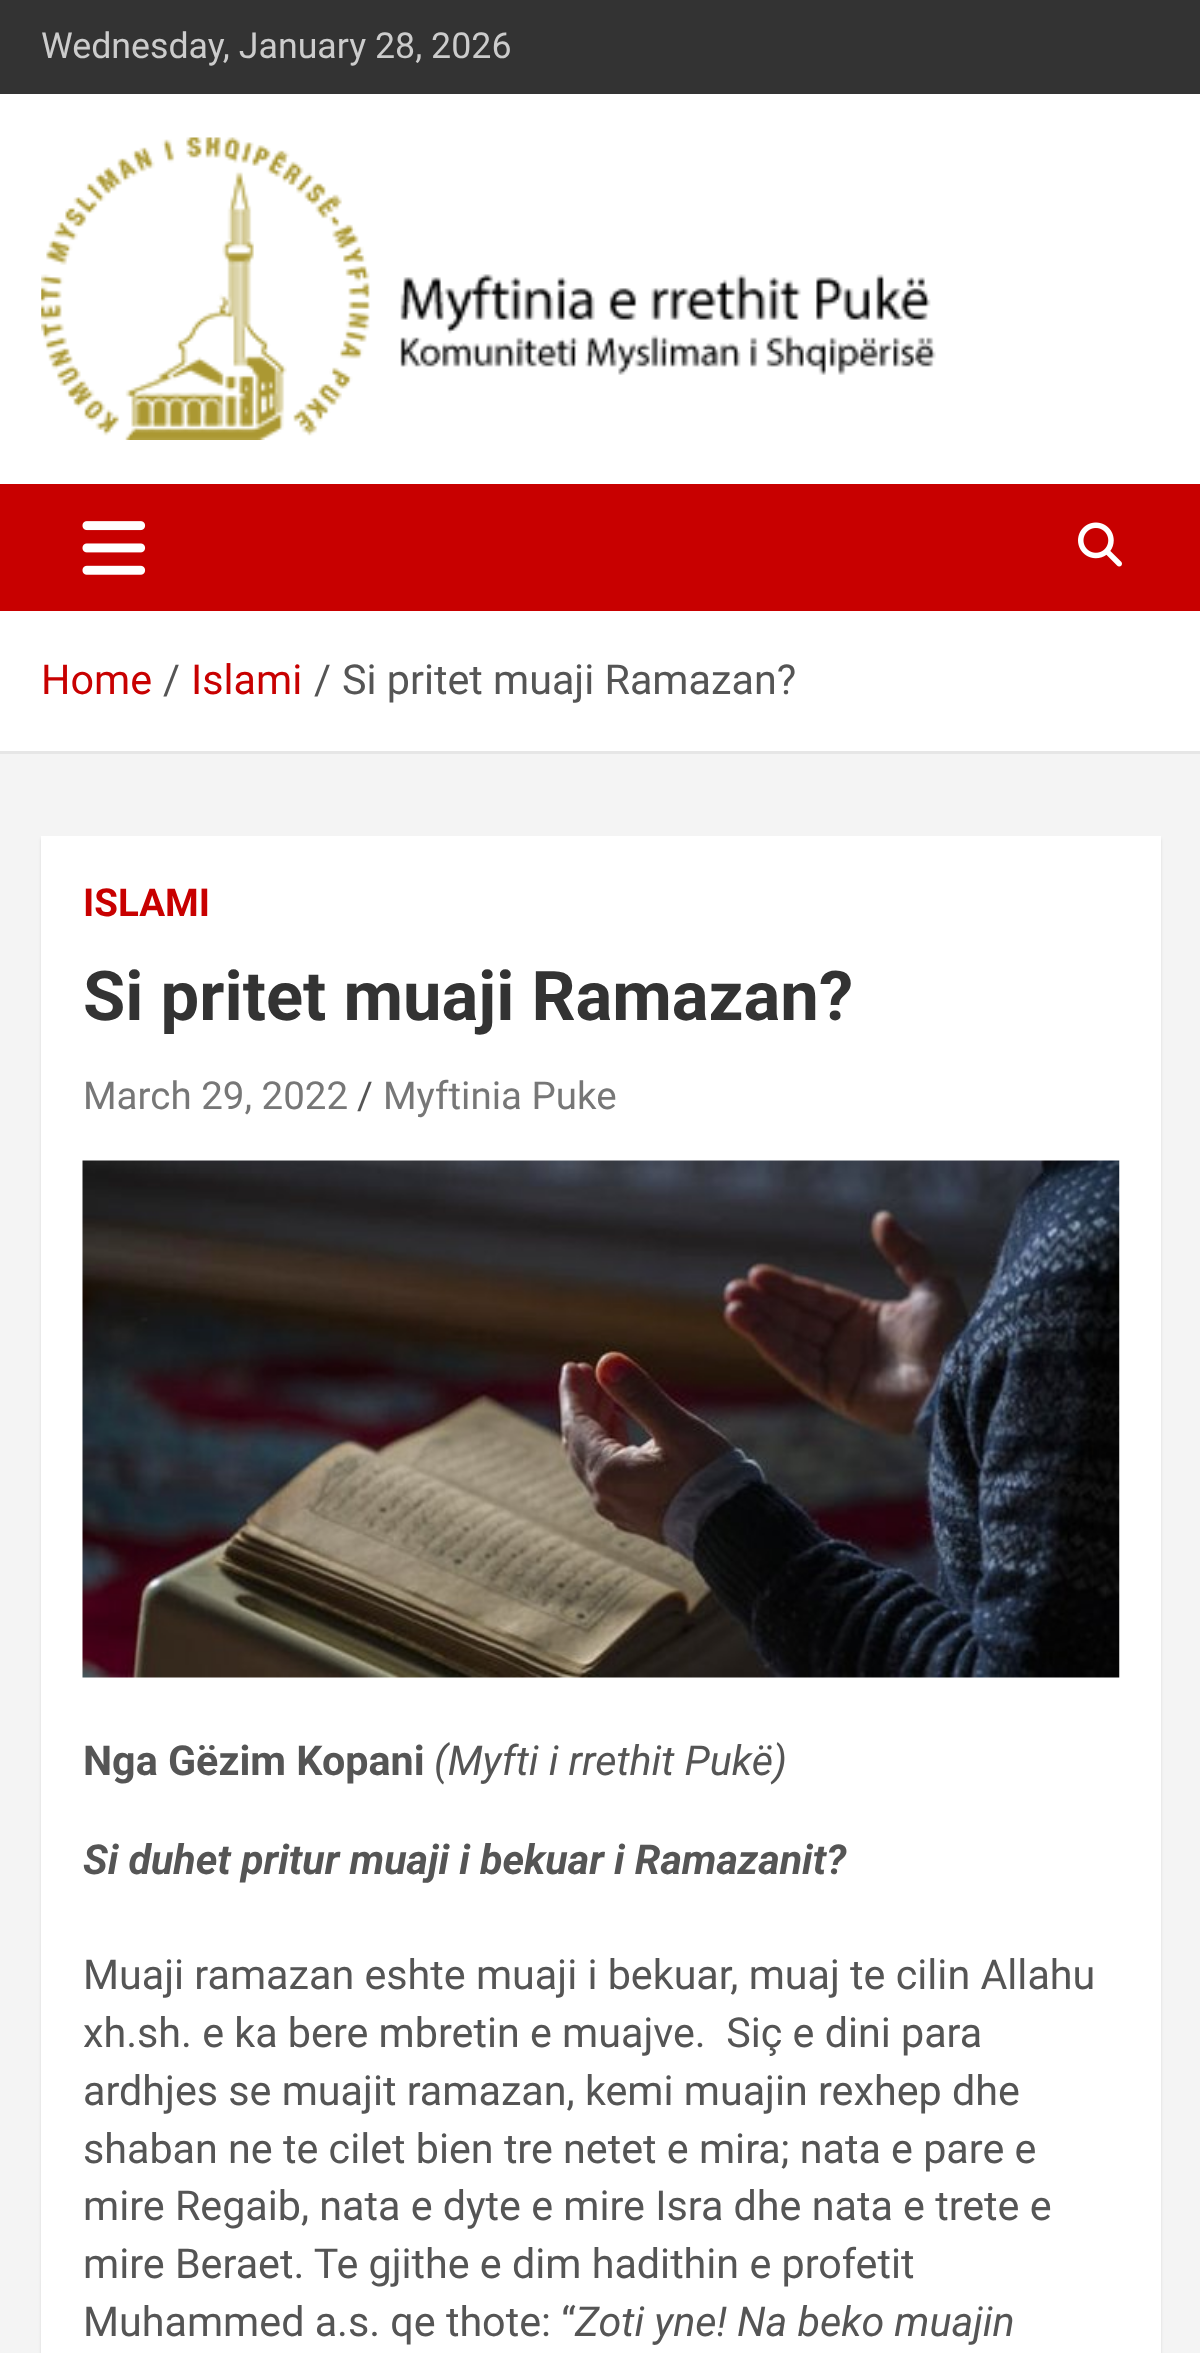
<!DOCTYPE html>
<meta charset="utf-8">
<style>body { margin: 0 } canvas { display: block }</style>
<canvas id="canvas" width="1200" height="2353"></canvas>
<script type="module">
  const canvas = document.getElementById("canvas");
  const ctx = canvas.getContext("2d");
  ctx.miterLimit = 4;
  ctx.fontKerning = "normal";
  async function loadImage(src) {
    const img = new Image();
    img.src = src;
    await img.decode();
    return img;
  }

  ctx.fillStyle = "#f4f4f4";
  ctx.fillRect(0, 0, 1200, 2353);
  ctx.fillStyle = "#333333";
  ctx.fillRect(0, 0, 1200, 94);
  ctx.font = "35.75px Roboto";
  ctx.fillStyle = "#cccccc";
  ctx.fillText("Wednesday, January 28, 2026", 41, 58);
  ctx.fillStyle = "#ffffff";
  ctx.fillRect(0, 94, 1200, 390);
  ctx.drawImage(await loadImage("img1.png"), 41, 137, 895, 303);
  ctx.fillStyle = "#c80000";
  ctx.fillRect(0, 484, 1200, 127);
  ctx.drawImage(await loadImage("img2.png"), 82, 521, 64, 54);
  ctx.drawImage(await loadImage("img3.png"), 1078, 522, 44, 45);
  ctx.fillStyle = "#ffffff";
  ctx.fillRect(0, 611, 1200, 140);
  ctx.fillStyle = "#e6e6e6";
  ctx.fillRect(0, 751, 1200, 3);
  ctx.font = "41.25px Roboto";
  ctx.fillStyle = "#c80000";
  ctx.fillText("Home", 41, 694);
  ctx.fillStyle = "#555555";
  ctx.fillText("/", 163, 694);
  ctx.fillStyle = "#c80000";
  ctx.fillText("Islami", 191, 694);
  ctx.fillStyle = "#555555";
  ctx.fillText("/", 314, 694);
  ctx.fillText("Si pritet muaji Ramazan?", 342, 694);
  ctx.fillStyle = "rgba(0, 0, 0, 0.1)";
  ctx.filter = "blur(1.5px)";
  ctx.beginPath();
  ctx.rect(41, 839, 1120, 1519);
  ctx.fill();
  ctx.filter = "none";
  ctx.fillStyle = "#ffffff";
  ctx.fillRect(41, 836, 1120, 1517);
  ctx.font = "bold 38.5px Roboto";
  ctx.fillStyle = "#c80000";
  ctx.fillText("ISLAMI", 83, 916);
  ctx.font = "bold 68.75px Roboto";
  ctx.fillStyle = "#333333";
  ctx.fillText("Si pritet muaji Ramazan?", 83, 1020);
  ctx.font = "38.5px Roboto";
  ctx.fillStyle = "#777777";
  ctx.fillText("March 29, 2022", 83, 1109);
  ctx.fillStyle = "#555555";
  ctx.fillText("/", 357, 1109);
  ctx.fillStyle = "#777777";
  ctx.fillText("Myftinia Puke", 383, 1109);
  ctx.drawImage(await loadImage("img4.png"), 82, 1160, 1038, 518);
  ctx.font = "bold 41.25px Roboto";
  ctx.fillStyle = "#555555";
  ctx.fillText("Nga Gëzim Kopani", 83, 1775);
  ctx.font = "italic 41.25px Roboto";
  ctx.fillText("(Myfti i rrethit Pukë)", 434, 1775);
  ctx.font = "italic bold 41.25px Roboto";
  ctx.fillText("Si duhet pritur muaji i bekuar i Ramazanit?", 83, 1874);
  ctx.font = "41.25px Roboto";
  ctx.fillText("Muaji ramazan eshte muaji i bekuar, muaj te cilin Allahu", 83, 1989);
  ctx.fillText("xh.sh. e ka bere mbretin e muajve.  Siç e dini para", 83, 2047);
  ctx.fillText("ardhjes se muajit ramazan, kemi muajin rexhep dhe", 83, 2105);
  ctx.fillText("shaban ne te cilet bien tre netet e mira; nata e pare e", 83, 2163);
  ctx.fillText("mire Regaib, nata e dyte e mire Isra dhe nata e trete e", 83, 2220);
  ctx.fillText("mire Beraet. Te gjithe e dim hadithin e profetit", 83, 2278);
  ctx.fillText("Muhammed a.s. qe thote: “", 83, 2336);
  ctx.font = "italic 41.25px Roboto";
  ctx.fillText("Zoti yne! Na beko muajin", 575, 2336);
</script>
